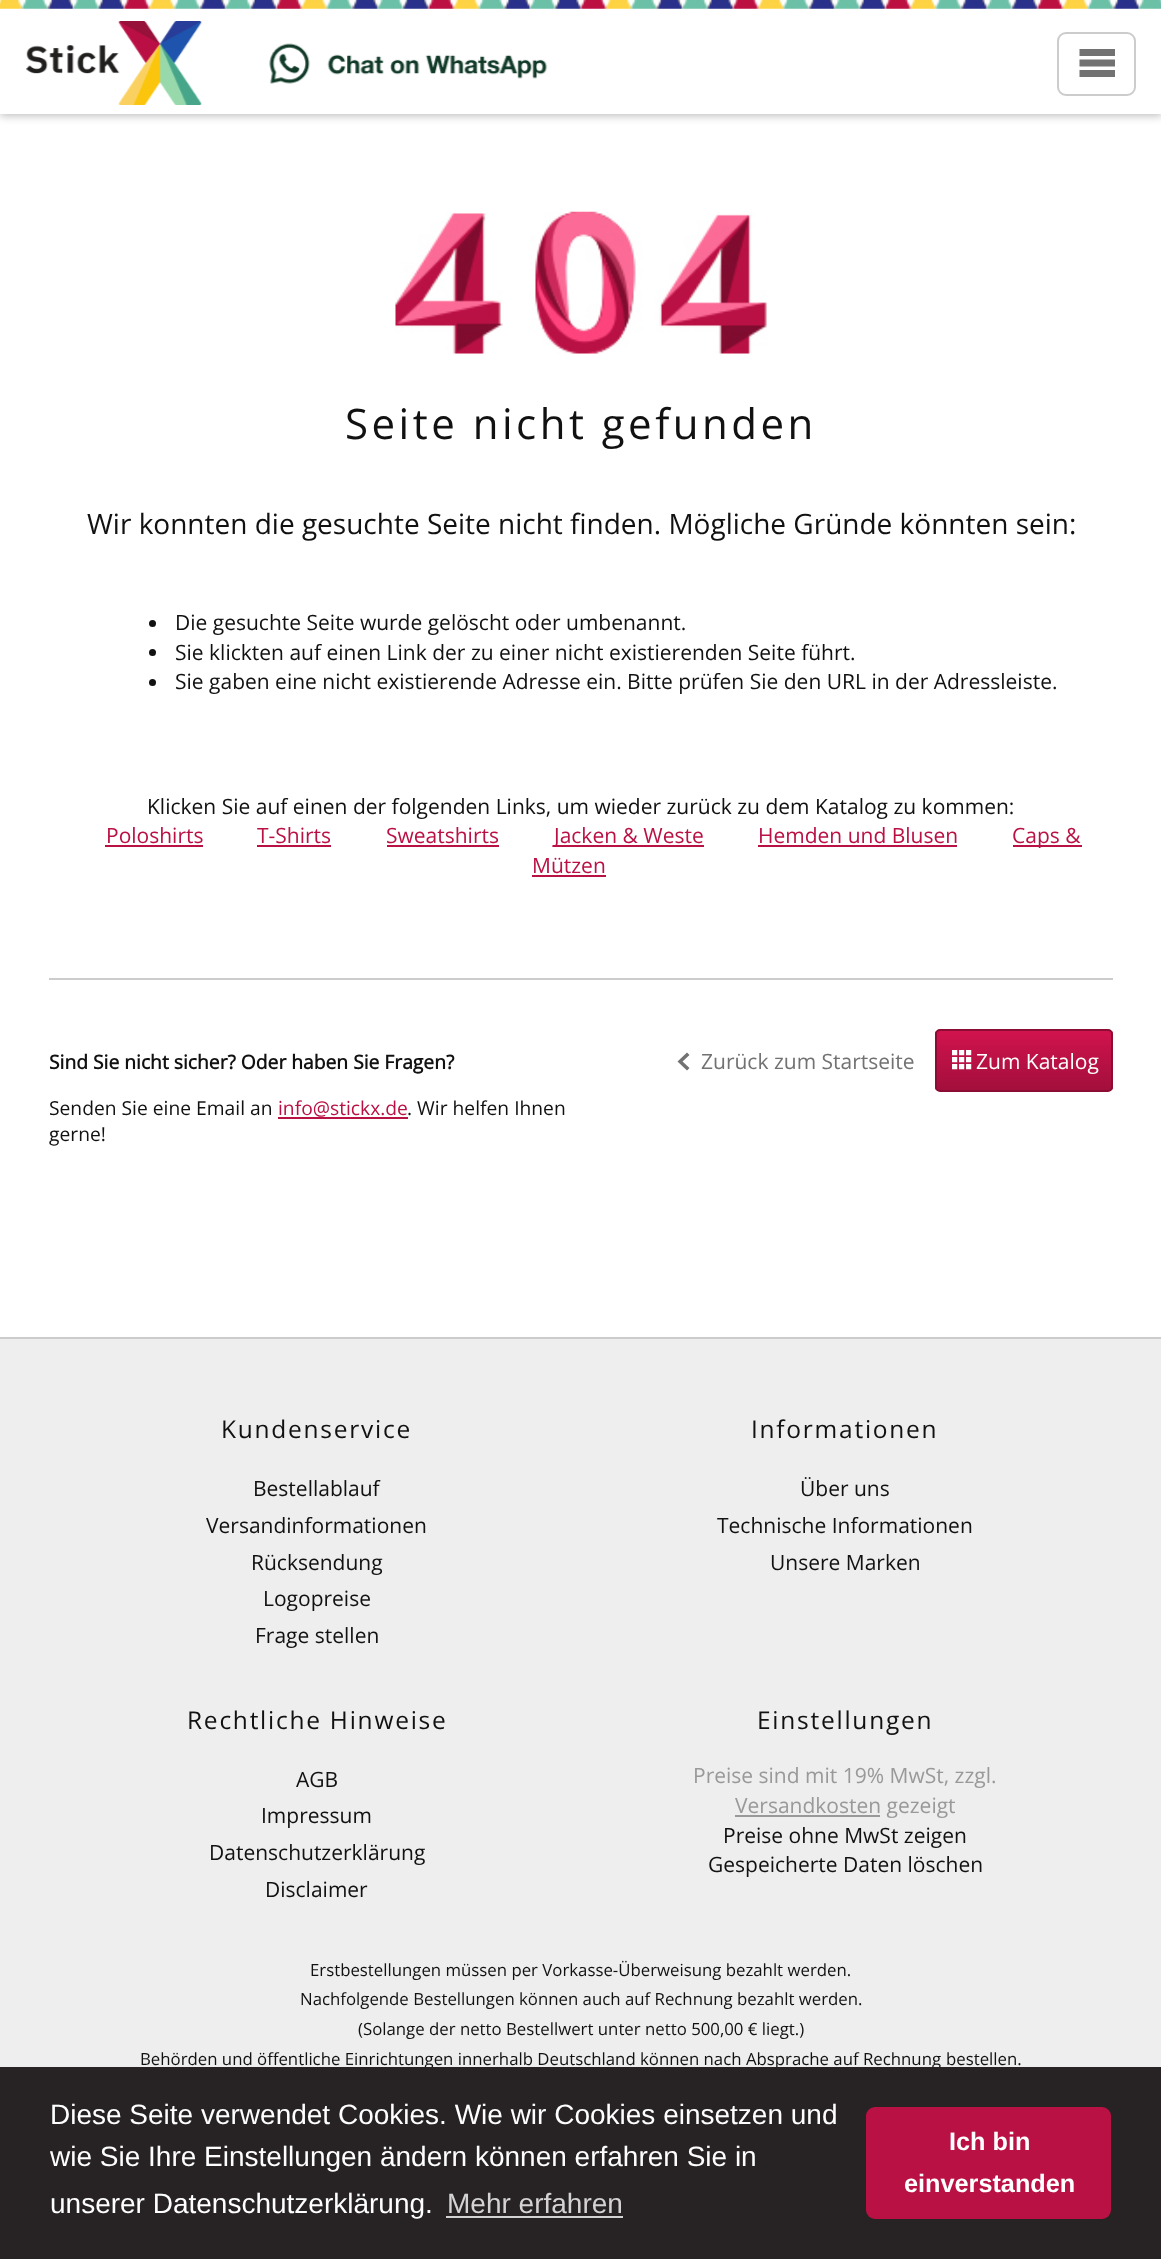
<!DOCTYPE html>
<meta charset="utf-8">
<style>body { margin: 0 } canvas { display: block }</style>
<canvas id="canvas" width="1161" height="2259"></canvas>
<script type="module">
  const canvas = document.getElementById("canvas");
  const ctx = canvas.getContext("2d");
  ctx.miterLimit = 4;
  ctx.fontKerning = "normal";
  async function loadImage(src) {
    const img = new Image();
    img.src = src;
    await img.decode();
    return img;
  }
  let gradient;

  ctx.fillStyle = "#ffffff";
  ctx.fillRect(0, 0, 1161, 2259);
  ctx.fillStyle = "rgba(0, 0, 0, 0.25)";
  ctx.filter = "blur(4.5px)";
  ctx.beginPath();
  ctx.rect(0, 2, 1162, 114);
  ctx.fill();
  ctx.filter = "none";
  ctx.fillStyle = "#ffffff";
  ctx.fillRect(0, 8, 1161, 106);
  ctx.drawImage(await loadImage("img1.png"), 0, 0, 1161, 9);
  ctx.drawImage(await loadImage("img2.png"), 26, 21, 176, 84);
  ctx.drawImage(await loadImage("img3.png"), 269, 43, 279, 41);
  ctx.beginPath();
  ctx.roundRect(1058, 33, 77, 62, 8);
  ctx.strokeStyle = "#cccccc";
  ctx.lineWidth = 2;
  ctx.stroke();
  ctx.fillStyle = "#727272";
  ctx.beginPath();
  ctx.moveTo(1079.5, 59.5);
  ctx.lineTo(1115, 59.5);
  ctx.lineTo(1115, 66.5);
  ctx.lineTo(1079.5, 66.5);
  ctx.closePath();
  ctx.moveTo(1079.5, 49);
  ctx.lineTo(1115, 49);
  ctx.lineTo(1115, 56);
  ctx.lineTo(1079.5, 56);
  ctx.closePath();
  ctx.moveTo(1079.5, 70);
  ctx.lineTo(1115, 70);
  ctx.lineTo(1115, 77);
  ctx.lineTo(1079.5, 77);
  ctx.closePath();
  ctx.fill();
  ctx.drawImage(await loadImage("img4.png"), 395, 211, 372, 143);
  ctx.letterSpacing = "3.5px";
  ctx.font = "42px Open Sans";
  ctx.fillStyle = "#111111";
  ctx.fillText("Seite nicht gefunden", 345, 439);
  ctx.letterSpacing = "0px";
  ctx.font = "28px Open Sans";
  ctx.fillText("Wir konnten die gesuchte Seite nicht finden. Mögliche Gründe könnten sein:", 87, 534);
  ctx.beginPath();
  ctx.arc(152.5, 623.5, 3.5, 0, Math.PI * 2);
  ctx.fill();
  ctx.font = "21px Open Sans";
  ctx.fillText("Die gesuchte Seite wurde gelöscht oder umbenannt.", 175, 630);
  ctx.beginPath();
  ctx.arc(152.5, 652.5, 3.5, 0, Math.PI * 2);
  ctx.fill();
  ctx.fillText("Sie klickten auf einen Link der zu einer nicht existierenden Seite führt.", 175, 660);
  ctx.beginPath();
  ctx.arc(152.5, 682.5, 3.5, 0, Math.PI * 2);
  ctx.fill();
  ctx.fillText("Sie gaben eine nicht existierende Adresse ein. Bitte prüfen Sie den URL in der Adressleiste.", 175, 689);
  ctx.fillText("Klicken Sie auf einen der folgenden Links, um wieder zurück zu dem Katalog zu kommen:", 147, 814);
  ctx.fillStyle = "#ba1145";
  ctx.fillText("Poloshirts", 106, 843);
  ctx.fillRect(105, 845, 98, 2);
  ctx.fillText("T-Shirts", 257, 843);
  ctx.fillRect(257, 845, 74, 2);
  ctx.fillText("Sweatshirts", 386, 843);
  ctx.fillRect(387, 845, 112, 2);
  ctx.fillRect(553, 845, 151, 2);
  ctx.fillText("Jacken & Weste", 554, 843);
  ctx.fillText("Hemden und Blusen", 758, 843);
  ctx.fillRect(758, 845, 199, 2);
  ctx.fillRect(1013, 845, 69, 2);
  ctx.fillText("Caps &", 1012, 843);
  ctx.fillText("Mützen", 532, 873);
  ctx.fillRect(532, 875, 74, 2);
  ctx.fillStyle = "#cccccc";
  ctx.fillRect(49, 978, 1064, 2);
  ctx.font = "bold 19.25px Open Sans";
  ctx.fillStyle = "#111111";
  ctx.fillText("Sind Sie nicht sicher? Oder haben Sie Fragen?", 49, 1069);
  ctx.font = "19.25px Open Sans";
  ctx.fillText("Senden Sie eine Email an", 49, 1115);
  ctx.fillStyle = "#ba1145";
  ctx.fillText("info@stickx.de", 278, 1115);
  ctx.fillRect(278, 1117, 130, 2);
  ctx.fillStyle = "#111111";
  ctx.fillText(". Wir helfen Ihnen", 407, 1115);
  ctx.fillText("gerne!", 49, 1141);
  ctx.fillStyle = "#727272";
  ctx.beginPath();
  ctx.moveTo(677.5, 1061.5);
  ctx.lineTo(687, 1052.5);
  ctx.lineTo(689.5, 1055);
  ctx.lineTo(682.5, 1061.5);
  ctx.lineTo(689.5, 1068);
  ctx.lineTo(687, 1070.5);
  ctx.closePath();
  ctx.fill();
  ctx.font = "21px Open Sans";
  ctx.fillText("Zurück zum Startseite", 701, 1069);
  ctx.save();
  ctx.beginPath();
  ctx.roundRect(935, 1029, 178, 63, 5);
  ctx.clip();
  gradient = ctx.createLinearGradient(1024, 1031, 1024, 1090);
  gradient.addColorStop(0, "#d1134e");
  gradient.addColorStop(1, "#a30f3c");
  ctx.fillStyle = gradient;
  ctx.fillRect(935, 1031, 178, 59);
  ctx.restore();
  ctx.beginPath();
  ctx.roundRect(936, 1030, 176, 61, 4);
  ctx.strokeStyle = "#8b0d34";
  ctx.stroke();
  ctx.drawImage(await loadImage("img5.png"), 952, 1050, 20, 20);
  ctx.fillStyle = "#ffffff";
  ctx.fillText("Zum Katalog", 976, 1069);
  ctx.fillStyle = "#eeeeee";
  ctx.fillRect(0, 1339, 1161, 728);
  ctx.fillStyle = "#cccccc";
  ctx.fillRect(0, 1337, 1161, 2);
  ctx.letterSpacing = "1.75px";
  ctx.font = "24.5px Open Sans";
  ctx.fillStyle = "#111111";
  ctx.fillText("Kundenservice", 221, 1438);
  ctx.letterSpacing = "0px";
  ctx.font = "21px Open Sans";
  ctx.fillText("Bestellablauf", 253, 1496);
  ctx.fillText("Versandinformationen", 206, 1533);
  ctx.fillText("Rücksendung", 251, 1570);
  ctx.fillText("Logopreise", 263, 1606);
  ctx.fillText("Frage stellen", 255, 1643);
  ctx.letterSpacing = "1.75px";
  ctx.font = "24.5px Open Sans";
  ctx.fillText("Informationen", 751, 1438);
  ctx.letterSpacing = "0px";
  ctx.font = "21px Open Sans";
  ctx.fillText("Über uns", 800, 1496);
  ctx.fillText("Technische Informationen", 717, 1533);
  ctx.fillText("Unsere Marken", 770, 1570);
  ctx.letterSpacing = "1.75px";
  ctx.font = "24.5px Open Sans";
  ctx.fillText("Rechtliche Hinweise", 187, 1729);
  ctx.letterSpacing = "0px";
  ctx.font = "21px Open Sans";
  ctx.fillText("AGB", 296, 1787);
  ctx.fillText("Impressum", 261, 1823);
  ctx.fillText("Datenschutzerklärung", 209, 1860);
  ctx.fillText("Disclaimer", 265, 1897);
  ctx.letterSpacing = "1.75px";
  ctx.font = "24.5px Open Sans";
  ctx.fillText("Einstellungen", 757, 1729);
  ctx.letterSpacing = "0px";
  ctx.font = "21px Open Sans";
  ctx.fillStyle = "#999999";
  ctx.fillText("Preise sind mit 19% MwSt, zzgl.", 693, 1783);
  ctx.fillRect(735, 1815, 145, 2);
  ctx.fillText("Versandkosten gezeigt", 735, 1813);
  ctx.fillStyle = "#111111";
  ctx.fillText("Preise ohne MwSt zeigen", 723, 1843);
  ctx.fillText("Gespeicherte Daten löschen", 708, 1872);
  ctx.font = "16.8px Open Sans";
  ctx.fillText("Erstbestellungen müssen per Vorkasse-Überweisung bezahlt werden.", 310, 1976);
  ctx.fillText("Nachfolgende Bestellungen können auch auf Rechnung bezahlt werden.", 300, 2005);
  ctx.fillText("(Solange der netto Bestellwert unter netto 500,00 € liegt.)", 358, 2035);
  ctx.fillText("Behörden und öffentliche Einrichtungen innerhalb Deutschland können nach Absprache auf Rechnung", 140, 2065);
  ctx.fillText("bestellen.", 946, 2065);
  ctx.fillStyle = "#272324";
  ctx.fillRect(0, 2067, 1161, 192);
  ctx.font = "28px Liberation Sans";
  ctx.fillStyle = "#ffffff";
  ctx.fillText("Diese Seite verwendet Cookies. Wie wir Cookies einsetzen und", 50, 2124);
  ctx.fillText("wie Sie Ihre Einstellungen ändern können erfahren Sie in", 50, 2166);
  ctx.fillText("unserer Datenschutzerklärung.", 50, 2213);
  ctx.fillStyle = "#d4d3d3";
  ctx.fillText("Mehr erfahren", 447, 2213);
  ctx.fillRect(446, 2216, 177, 2);
  ctx.fillStyle = "#ba1145";
  ctx.beginPath();
  ctx.roundRect(866, 2107, 245, 112, 9);
  ctx.fill();
  ctx.font = "bold 25.25px Liberation Sans";
  ctx.fillStyle = "#ffffff";
  ctx.fillText("Ich bin", 949, 2150);
  ctx.fillText("einverstanden", 904, 2192);
</script>
